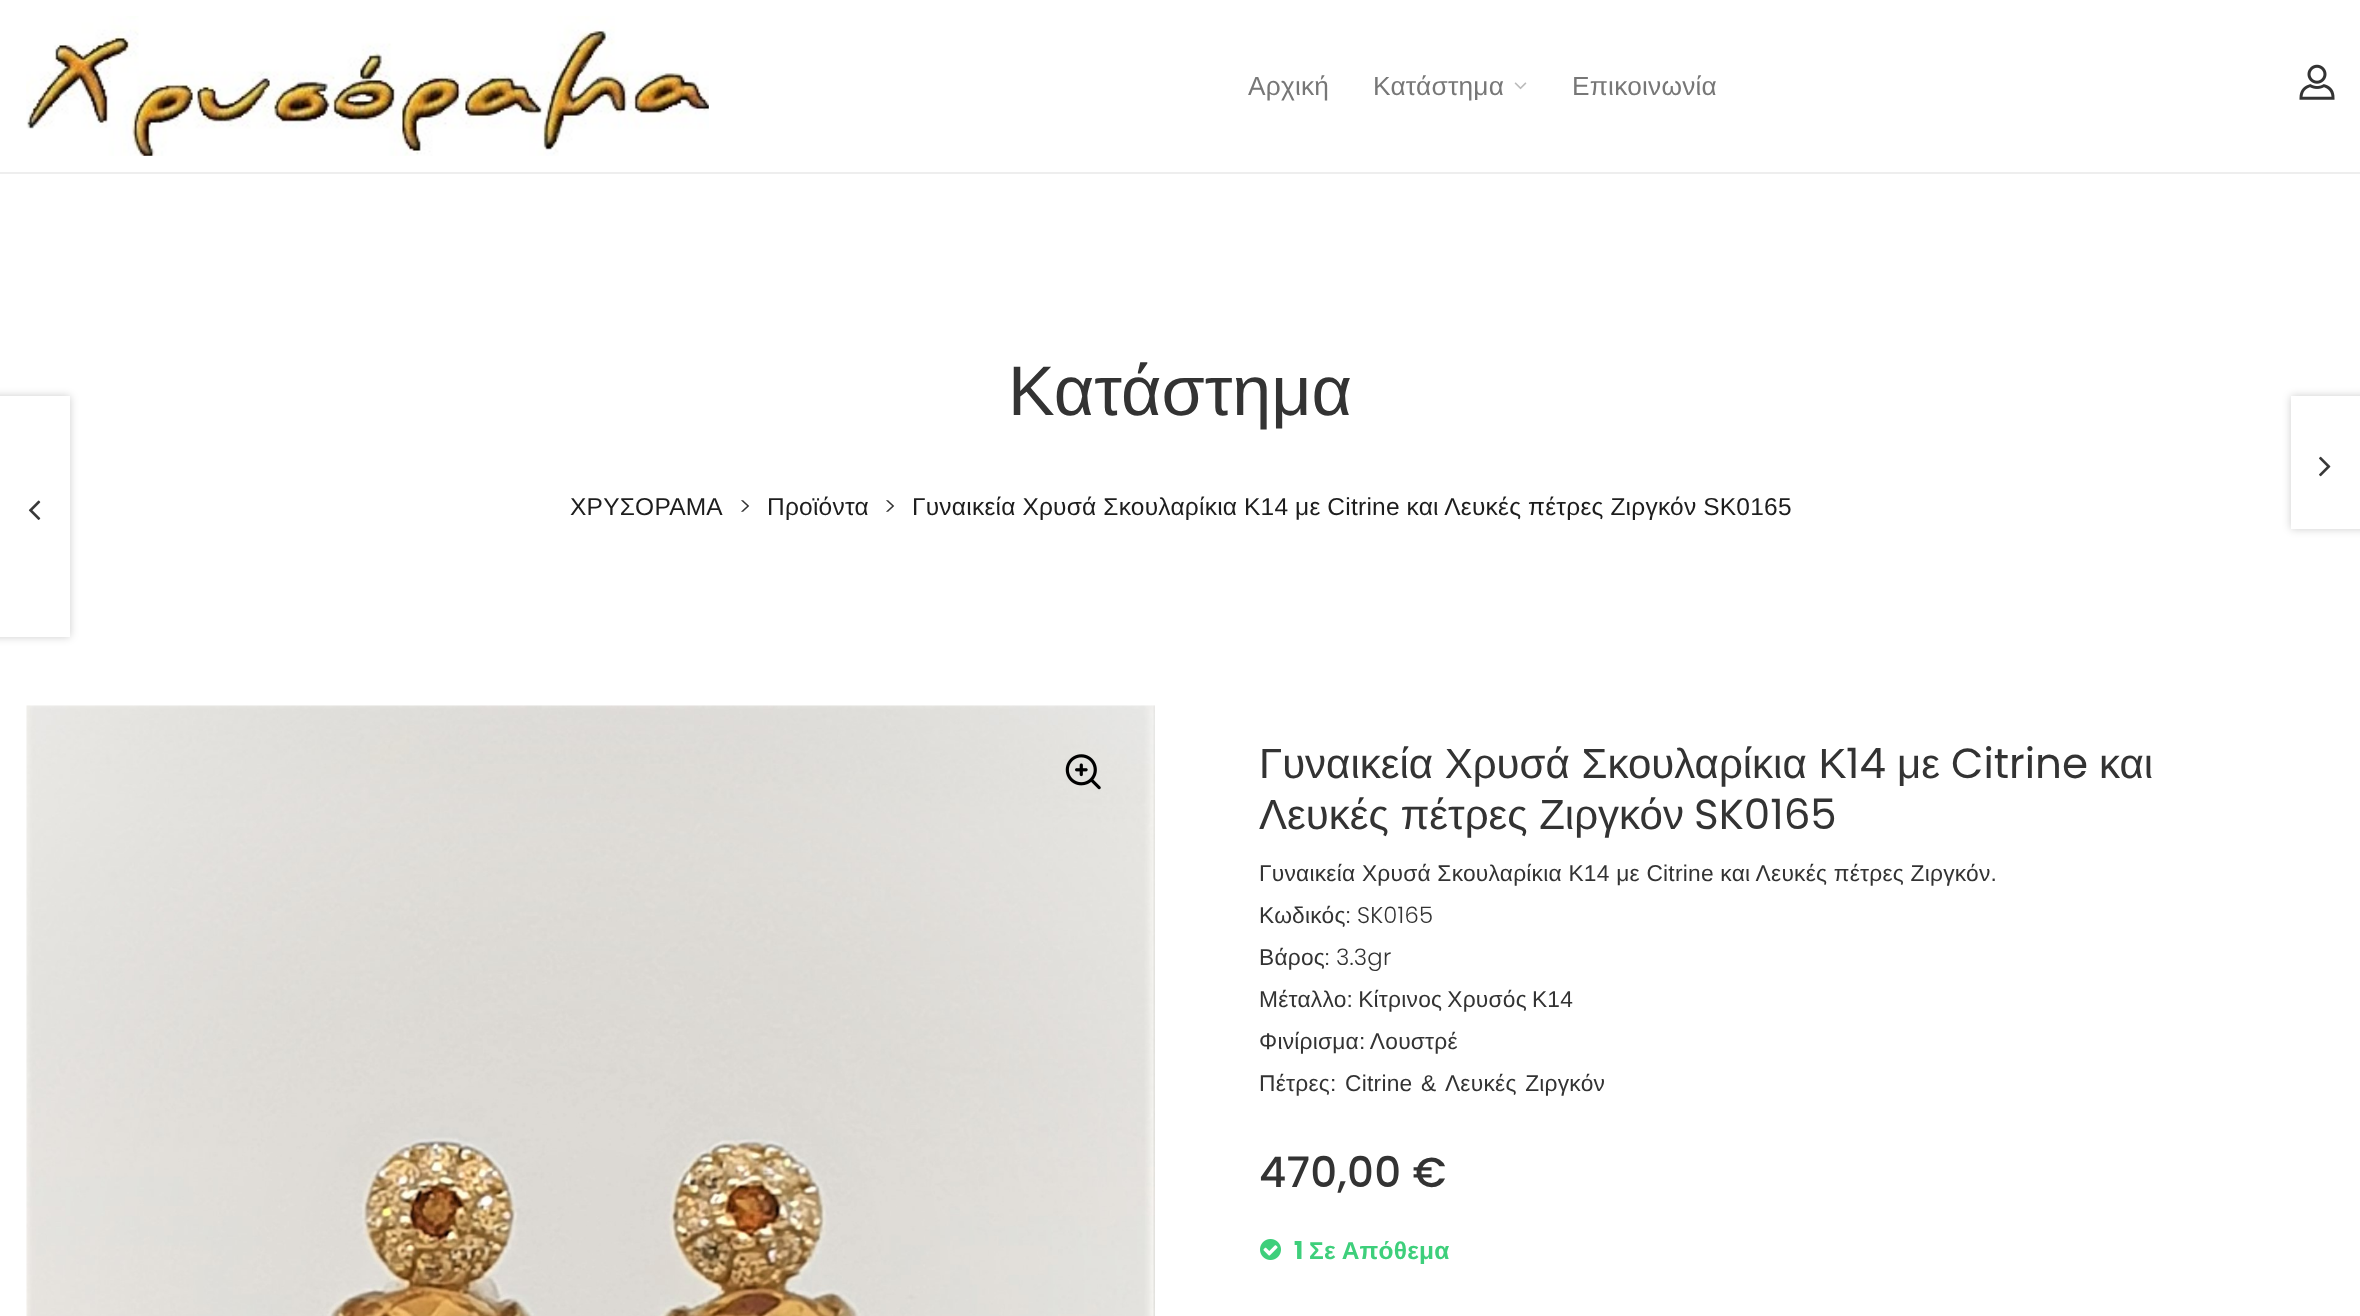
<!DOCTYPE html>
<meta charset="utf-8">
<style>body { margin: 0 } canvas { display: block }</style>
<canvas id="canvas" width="2360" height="1316"></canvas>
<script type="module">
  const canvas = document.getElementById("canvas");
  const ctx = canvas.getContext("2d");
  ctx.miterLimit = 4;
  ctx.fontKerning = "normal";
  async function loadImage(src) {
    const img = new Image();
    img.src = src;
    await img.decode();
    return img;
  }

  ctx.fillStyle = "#ffffff";
  ctx.fillRect(0, 0, 2360, 1316);
  ctx.fillStyle = "#eeeeee";
  ctx.fillRect(0, 172, 2360, 2);
  ctx.drawImage(await loadImage("img1.png"), 26, 16, 683, 140);
  ctx.letterSpacing = "0.23px";
  ctx.font = "26.25px Liberation Sans";
  ctx.fillStyle = "#777777";
  ctx.fillText("Αρχική", 1248, 95);
  ctx.fillText("Κατάστημα", 1373, 95);
  ctx.drawImage(await loadImage("img2.png"), 1514, 82, 13, 8);
  ctx.fillText("Επικοινωνία", 1572, 95);
  ctx.drawImage(await loadImage("img3.png"), 2299, 64, 36, 36);
  ctx.letterSpacing = "0px";
  ctx.font = "70px Liberation Sans";
  ctx.fillStyle = "#333333";
  ctx.fillText("Κατάστημα", 1008, 415);
  ctx.letterSpacing = "0.23px";
  ctx.font = "24.5px Liberation Sans";
  ctx.fillStyle = "#1d1d1d";
  ctx.fillText("ΧΡΥΣΟΡΑΜΑ", 570, 515);
  ctx.font = "300 24.5px Poppins";
  ctx.fillStyle = "#333333";
  ctx.fillText(">", 739, 515);
  ctx.font = "24.5px Liberation Sans";
  ctx.fillStyle = "#1d1d1d";
  ctx.fillText("Προϊόντα", 767, 515);
  ctx.font = "300 24.5px Poppins";
  ctx.fillStyle = "#333333";
  ctx.fillText(">", 884, 515);
  ctx.wordSpacing = "-0.25px";
  ctx.font = "24.5px Liberation Sans";
  ctx.fillStyle = "#1d1d1d";
  ctx.fillText("Γυναικεία Χρυσά Σκουλαρίκια Κ14 με Citrine και Λευκές πέτρες Ζιργκόν SK0165", 912, 515);
  ctx.drawImage(await loadImage("img4.png"), 26, 705, 1129, 611);
  ctx.drawImage(await loadImage("img5.png"), 1065, 754, 36, 36);
  ctx.letterSpacing = "0px";
  ctx.wordSpacing = "0px";
  ctx.font = "42px Liberation Sans";
  ctx.fillStyle = "#333333";
  ctx.fillText("Γυναικεία Χρυσά Σκουλαρίκια Κ", 1259, 778);
  ctx.font = "42px Poppins";
  ctx.fillText("14", 1846, 778);
  ctx.font = "42px Liberation Sans";
  ctx.fillText("με", 1897, 778);
  ctx.font = "42px Poppins";
  ctx.fillText("Citrine", 1951, 778);
  ctx.font = "42px Liberation Sans";
  ctx.fillText("και", 2099, 778);
  ctx.fillText("Λευκές πέτρες Ζιργκόν", 1259, 829);
  ctx.font = "42px Poppins";
  ctx.fillText("SK0165", 1694, 829);
  ctx.letterSpacing = "0.23px";
  ctx.font = "22.75px Liberation Sans";
  ctx.fillText("Γυναικεία Χρυσά Σκουλαρίκια Κ14 με Citrine και Λευκές πέτρες Ζιργκόν.", 1259, 881);
  ctx.fillText("Κωδικός", 1259, 923);
  ctx.font = "300 22.75px Poppins";
  ctx.fillText(": SK0165", 1346, 923);
  ctx.font = "22.75px Liberation Sans";
  ctx.fillText("Βάρος", 1259, 965);
  ctx.font = "300 22.75px Poppins";
  ctx.fillText(": 3.3gr", 1325, 965);
  ctx.wordSpacing = "-1.5px";
  ctx.font = "22.75px Liberation Sans";
  ctx.fillText("Μέταλλο: Κίτρινος Χρυσός Κ14", 1259, 1007);
  ctx.wordSpacing = "-1px";
  ctx.fillText("Φινίρισμα: Λουστρέ", 1259, 1049);
  ctx.wordSpacing = "2px";
  ctx.fillText("Πέτρες: Citrine & Λευκές Ζιργκόν", 1259, 1091);
  ctx.wordSpacing = "0px";
  ctx.font = "500 42px Poppins";
  ctx.fillText("470,00 €", 1259, 1187);
  ctx.drawImage(await loadImage("img6.png"), 1260, 1239, 21, 21);
  ctx.font = "bold 24.5px Poppins";
  ctx.fillStyle = "#3ecf7b";
  ctx.fillText("1", 1294, 1259);
  ctx.wordSpacing = "-0.25px";
  ctx.font = "bold 24.5px Liberation Sans";
  ctx.fillText("Σε Απόθεμα", 1309, 1259);
  ctx.save();
  ctx.beginPath();
  ctx.moveTo(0, 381);
  ctx.lineTo(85, 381);
  ctx.lineTo(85, 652);
  ctx.lineTo(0, 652);
  ctx.closePath();
  ctx.moveTo(-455, 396);
  ctx.lineTo(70, 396);
  ctx.lineTo(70, 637);
  ctx.lineTo(-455, 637);
  ctx.closePath();
  ctx.clip("evenodd");
  ctx.fillStyle = "rgba(0, 0, 0, 0.2)";
  ctx.filter = "blur(4.5px)";
  ctx.beginPath();
  ctx.rect(-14, 396, 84, 241);
  ctx.fill();
  ctx.filter = "none";
  ctx.restore();
  ctx.drawImage(await loadImage("img7.png"), 28, 500, 13, 20);
  ctx.fillStyle = "rgba(0, 0, 0, 0.2)";
  ctx.filter = "blur(4.5px)";
  ctx.beginPath();
  ctx.rect(2291, 396, 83, 133);
  ctx.fill();
  ctx.filter = "none";
  ctx.fillStyle = "#ffffff";
  ctx.fillRect(2291, 396, 69, 133);
  ctx.drawImage(await loadImage("img8.png"), 2319, 456, 12, 21);
</script>
